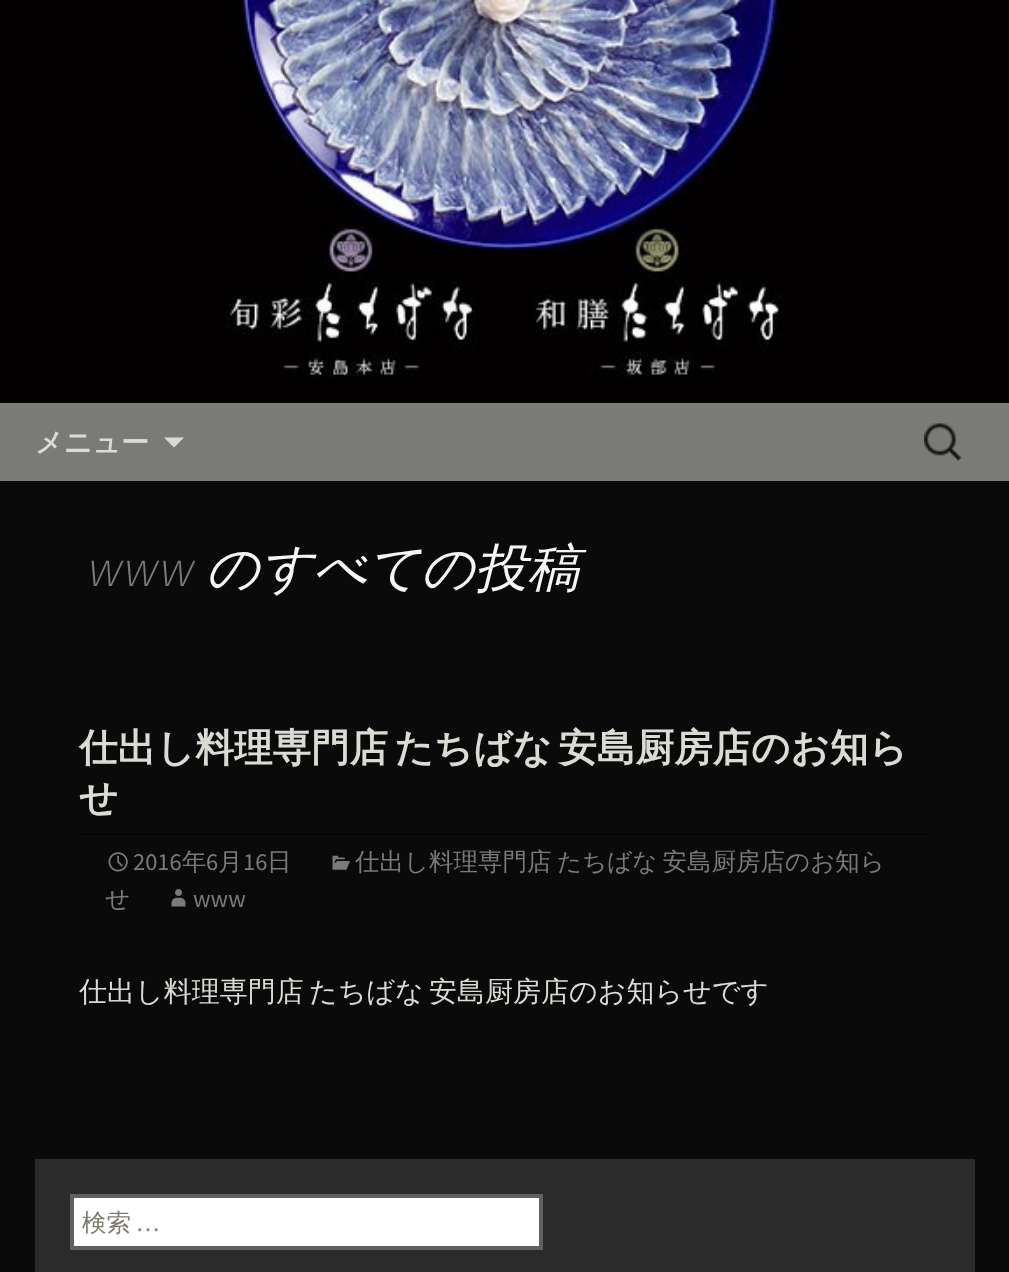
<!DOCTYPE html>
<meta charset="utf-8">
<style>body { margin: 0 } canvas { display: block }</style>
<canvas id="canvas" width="1009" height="1272"></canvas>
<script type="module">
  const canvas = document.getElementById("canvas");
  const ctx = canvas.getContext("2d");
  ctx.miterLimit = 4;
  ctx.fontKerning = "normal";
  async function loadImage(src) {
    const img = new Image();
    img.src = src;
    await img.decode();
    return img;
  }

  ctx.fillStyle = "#0a0a0a";
  ctx.fillRect(0, 0, 1009, 1272);
  ctx.drawImage(await loadImage("img1.png"), 0, 0, 1009, 403);
  ctx.fillStyle = "#7a7b77";
  ctx.fillRect(0, 403, 1009, 78);
  ctx.font = "bold 28px WenQuanYi Zen Hei";
  ctx.fillStyle = "#dbdad4";
  ctx.fillText("メニュー", 35, 452);
  ctx.beginPath();
  ctx.moveTo(164, 437.5);
  ctx.lineTo(174, 447.5);
  ctx.lineTo(184, 437.5);
  ctx.closePath();
  ctx.fill();
  ctx.drawImage(await loadImage("img2.png"), 924, 423, 38, 38);
  ctx.font = "italic 300 52.5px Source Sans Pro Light";
  ctx.fillStyle = "#7a7b77";
  ctx.fillText("www", 88, 586);
  ctx.font = "italic 500 52.5px WenQuanYi Zen Hei";
  ctx.fillStyle = "#f6f6f5";
  ctx.fillText("のすべての投稿", 206, 586);
  ctx.beginPath();
  ctx.moveTo(79, 834);
  ctx.lineTo(931, 834);
  ctx.strokeStyle = "#000000";
  ctx.lineWidth = 1.8;
  ctx.setLineDash([1.75, 1.75]);
  ctx.stroke();
  ctx.wordSpacing = "-5px";
  ctx.font = "bold 38.5px WenQuanYi Zen Hei";
  ctx.fillStyle = "#dbdad4";
  ctx.fillText("仕出し料理専門店 たちばな 安島厨房店のお知ら", 79, 761);
  ctx.wordSpacing = "0px";
  ctx.fillText("せ", 79, 811);
  ctx.drawImage(await loadImage("img3.png"), 332, 855, 18, 15);
  ctx.wordSpacing = "-2px";
  ctx.font = "500 24.5px WenQuanYi Zen Hei";
  ctx.fillStyle = "#7a7b77";
  ctx.fillText("仕出し料理専門店 たちばな 安島厨房店のお知ら", 355, 870);
  ctx.wordSpacing = "0px";
  ctx.fillText("せ", 105, 907);
  ctx.drawImage(await loadImage("img4.png"), 108, 852, 20, 20);
  ctx.font = "24.5px Source Sans Pro";
  ctx.fillText("2016", 133, 870);
  ctx.font = "500 24.5px WenQuanYi Zen Hei";
  ctx.fillText("年", 182, 870);
  ctx.font = "24.5px Source Sans Pro";
  ctx.fillText("6", 206, 870);
  ctx.font = "500 24.5px WenQuanYi Zen Hei";
  ctx.fillText("月", 218, 870);
  ctx.font = "24.5px Source Sans Pro";
  ctx.fillText("16", 243, 870);
  ctx.font = "500 24.5px WenQuanYi Zen Hei";
  ctx.fillText("日", 267, 870);
  ctx.drawImage(await loadImage("img5.png"), 171, 889, 15, 18);
  ctx.font = "24.5px Source Sans Pro";
  ctx.fillText("www", 193, 907);
  ctx.wordSpacing = "-3px";
  ctx.font = "500 28px WenQuanYi Zen Hei";
  ctx.fillStyle = "#dbdad4";
  ctx.fillText("仕出し料理専門店 たちばな 安島厨房店のお知らせです", 79, 1001);
  ctx.fillStyle = "#2a2b2a";
  ctx.fillRect(35, 1159, 940, 113);
  ctx.fillStyle = "#ffffff";
  ctx.beginPath();
  ctx.rect(72, 1196, 469, 52);
  ctx.fill();
  ctx.strokeStyle = "#60605f";
  ctx.lineWidth = 4;
  ctx.setLineDash([]);
  ctx.stroke();
  ctx.wordSpacing = "0px";
  ctx.font = "500 24.5px WenQuanYi Zen Hei";
  ctx.fillStyle = "#7d7b6d";
  ctx.fillText("検索", 82, 1231);
  ctx.font = "24.5px Source Sans Pro";
  ctx.fillText("…", 136, 1231);
</script>
